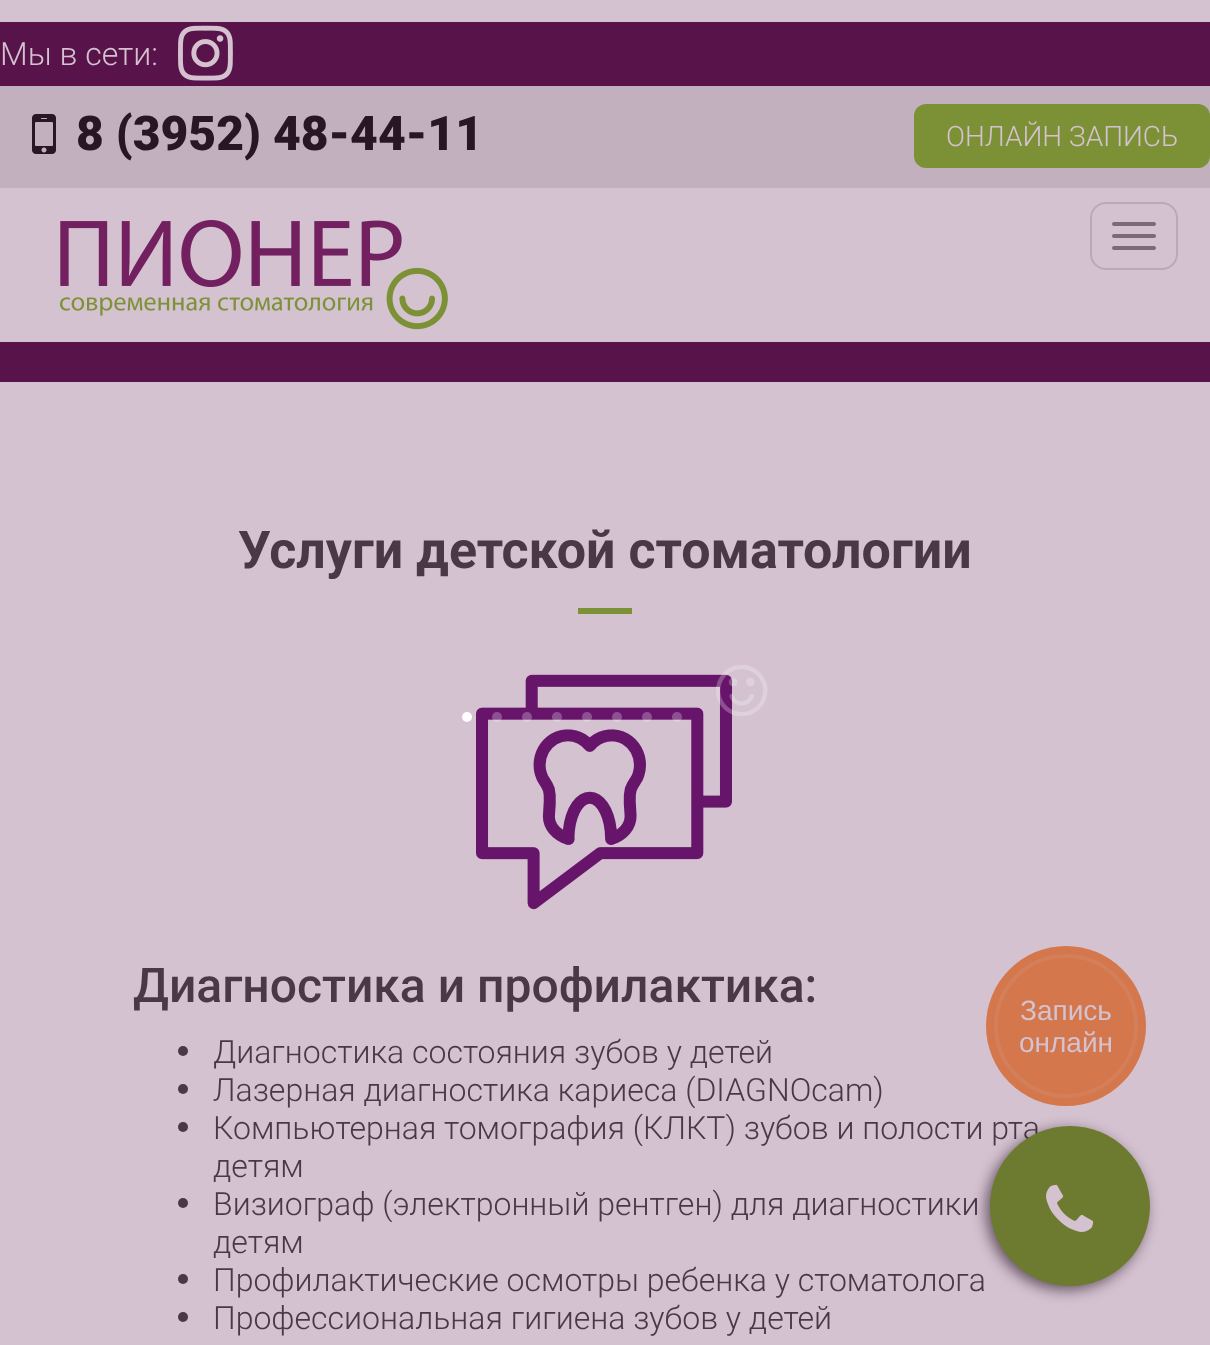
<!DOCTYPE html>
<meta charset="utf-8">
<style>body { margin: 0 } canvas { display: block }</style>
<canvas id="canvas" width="1210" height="1345"></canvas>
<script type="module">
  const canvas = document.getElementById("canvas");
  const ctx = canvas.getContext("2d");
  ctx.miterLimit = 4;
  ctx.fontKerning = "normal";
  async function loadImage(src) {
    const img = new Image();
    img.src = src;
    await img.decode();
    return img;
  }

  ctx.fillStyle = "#d4c2d0";
  ctx.fillRect(0, 0, 1210, 1345);
  ctx.fillStyle = "#58144a";
  ctx.fillRect(0, 22, 1210, 64);
  ctx.font = "300 32px Roboto";
  ctx.fillStyle = "#d4c2d0";
  ctx.fillText("Мы в сети:", 0, 65);
  ctx.drawImage(await loadImage("img1.png"), 178, 25, 55, 56);
  ctx.fillStyle = "#c2b0be";
  ctx.fillRect(0, 86, 1210, 102);
  ctx.drawImage(await loadImage("img2.png"), 32, 114, 24, 40);
  ctx.font = "900 48px Roboto";
  ctx.fillStyle = "#281624";
  ctx.fillText("8 (3952) 48-44-11", 76, 150);
  ctx.fillStyle = "#7c9135";
  ctx.beginPath();
  ctx.roundRect(914, 104, 296, 64, 12);
  ctx.fill();
  ctx.font = "300 28px Roboto";
  ctx.fillStyle = "#d4c2d0";
  ctx.fillText("ОНЛАЙН ЗАПИСЬ", 946, 146);
  ctx.drawImage(await loadImage("img3.png"), 60, 220, 388, 110);
  ctx.beginPath();
  ctx.roundRect(1091, 203, 86, 66, 15);
  ctx.strokeStyle = "#baa9b7";
  ctx.lineWidth = 2;
  ctx.stroke();
  ctx.fillStyle = "#7c6a78";
  ctx.beginPath();
  ctx.roundRect(1112, 222, 44, 4, 2);
  ctx.fill();
  ctx.beginPath();
  ctx.roundRect(1112, 234, 44, 4, 2);
  ctx.fill();
  ctx.beginPath();
  ctx.roundRect(1112, 246, 44, 4, 2);
  ctx.fill();
  ctx.fillStyle = "#58144a";
  ctx.fillRect(0, 342, 1210, 40);
  ctx.font = "bold 52px Roboto";
  ctx.fillStyle = "#4a3846";
  ctx.fillText("Услуги детской стоматологии", 238, 568);
  ctx.fillStyle = "#7c9135";
  ctx.fillRect(578, 608, 54, 6);
  ctx.drawImage(await loadImage("img4.png"), 476, 674, 256, 236);
  ctx.font = "500 48px Roboto";
  ctx.fillStyle = "#4a3846";
  ctx.fillText("Диагностика и профилактика:", 133, 1002);
  ctx.beginPath();
  ctx.arc(183, 1051, 5, 0, Math.PI * 2);
  ctx.fill();
  ctx.font = "300 32px Roboto";
  ctx.fillText("Диагностика состояния зубов у детей", 213, 1063);
  ctx.beginPath();
  ctx.arc(183, 1089, 5, 0, Math.PI * 2);
  ctx.fill();
  ctx.fillText("Лазерная диагностика кариеса (DIAGNOcam)", 213, 1101);
  ctx.beginPath();
  ctx.arc(183, 1127, 5, 0, Math.PI * 2);
  ctx.fill();
  ctx.fillText("Компьютерная томография (КЛКТ) зубов и полости рта", 213, 1139);
  ctx.fillText("детям", 213, 1177);
  ctx.beginPath();
  ctx.arc(183, 1203, 5, 0, Math.PI * 2);
  ctx.fill();
  ctx.fillText("Визиограф (электронный рентген) для диагностики", 213, 1215);
  ctx.fillText("детям", 213, 1253);
  ctx.beginPath();
  ctx.arc(183, 1279, 5, 0, Math.PI * 2);
  ctx.fill();
  ctx.fillText("Профилактические осмотры ребенка у стоматолога", 213, 1291);
  ctx.beginPath();
  ctx.arc(183, 1317, 5, 0, Math.PI * 2);
  ctx.fill();
  ctx.fillText("Профессиональная гигиена зубов у детей", 213, 1329);
  ctx.fillStyle = "#ffffff";
  ctx.beginPath();
  ctx.arc(467, 717, 5, 0, Math.PI * 2);
  ctx.fill();
  ctx.fillStyle = "rgba(255, 255, 255, 0.26)";
  ctx.beginPath();
  ctx.arc(497, 717, 5, 0, Math.PI * 2);
  ctx.fill();
  ctx.beginPath();
  ctx.arc(527, 717, 5, 0, Math.PI * 2);
  ctx.fill();
  ctx.beginPath();
  ctx.arc(557, 717, 5, 0, Math.PI * 2);
  ctx.fill();
  ctx.beginPath();
  ctx.arc(587, 717, 5, 0, Math.PI * 2);
  ctx.fill();
  ctx.beginPath();
  ctx.arc(617, 717, 5, 0, Math.PI * 2);
  ctx.fill();
  ctx.beginPath();
  ctx.arc(647, 717, 5, 0, Math.PI * 2);
  ctx.fill();
  ctx.beginPath();
  ctx.arc(677, 717, 5, 0, Math.PI * 2);
  ctx.fill();
  ctx.drawImage(await loadImage("img5.png"), 716, 665, 52, 52);
  ctx.fillStyle = "#d4774c";
  ctx.beginPath();
  ctx.arc(1066, 1026, 80, 0, Math.PI * 2);
  ctx.fill();
  ctx.beginPath();
  ctx.arc(1066, 1026, 70, 0, Math.PI * 2);
  ctx.strokeStyle = "#d47f5a";
  ctx.lineWidth = 4;
  ctx.stroke();
  ctx.font = "28px Liberation Sans";
  ctx.fillStyle = "#d4c2d0";
  ctx.fillText("Запись", 1020, 1020);
  ctx.fillText("онлайн", 1019, 1052);
  ctx.fillStyle = "rgba(23, 5, 19, 0.58)";
  ctx.filter = "blur(7px)";
  ctx.beginPath();
  ctx.roundRect(986, 1130, 160, 160, 80);
  ctx.fill();
  ctx.filter = "none";
  ctx.fillStyle = "#6c7b2f";
  ctx.beginPath();
  ctx.arc(1070, 1206, 80, 0, Math.PI * 2);
  ctx.fill();
  ctx.drawImage(await loadImage("img6.png"), 1046, 1184, 48, 48);
</script>
